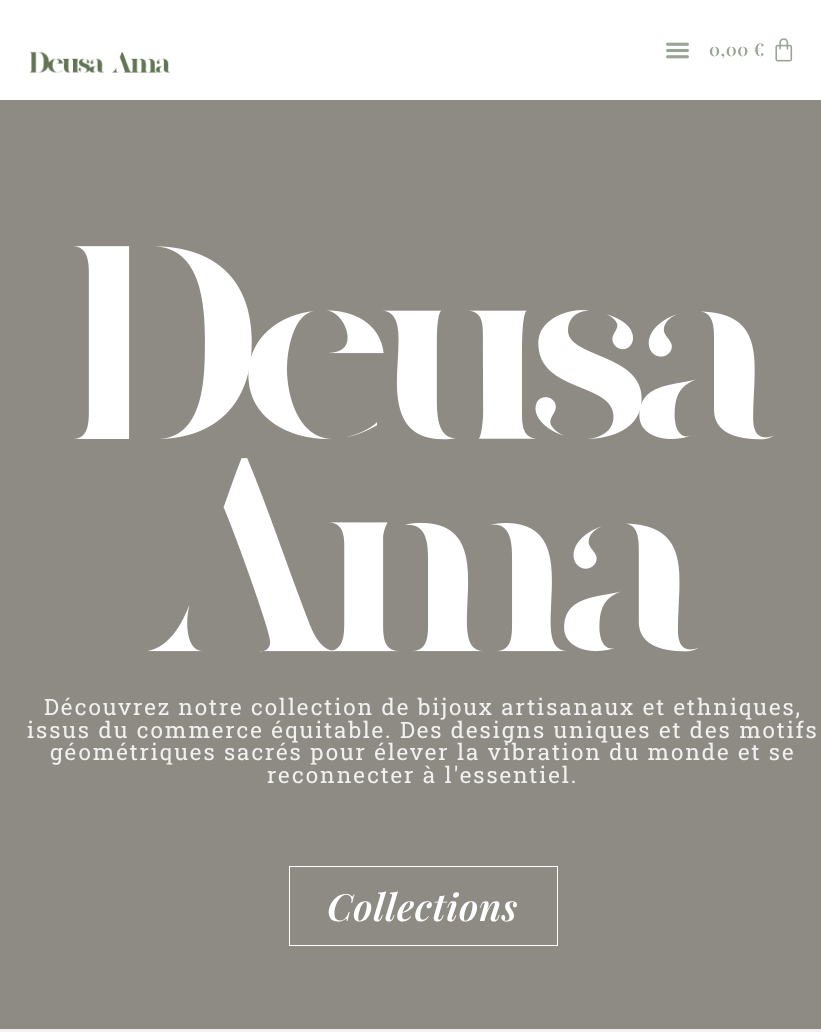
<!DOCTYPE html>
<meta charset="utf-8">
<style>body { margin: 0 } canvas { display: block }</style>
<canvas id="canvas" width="821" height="1032"></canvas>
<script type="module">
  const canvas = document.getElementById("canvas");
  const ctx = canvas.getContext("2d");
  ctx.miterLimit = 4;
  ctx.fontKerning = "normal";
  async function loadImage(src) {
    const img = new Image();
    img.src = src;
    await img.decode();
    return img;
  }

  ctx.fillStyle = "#ffffff";
  ctx.fillRect(0, 0, 821, 1032);
  ctx.drawImage(await loadImage("img1.png"), 29, 51, 142, 22);
  ctx.drawImage(await loadImage("img2.png"), 666, 42, 23, 17);
  ctx.letterSpacing = "0.5px";
  ctx.font = "600 17.5px Playfair Display";
  ctx.fillStyle = "#9aa494";
  ctx.fillText("0,00 €", 709, 56);
  ctx.drawImage(await loadImage("img3.png"), 775, 38, 18, 24);
  ctx.fillStyle = "#8e8a84";
  ctx.fillRect(0, 100, 821, 929);
  ctx.drawImage(await loadImage("img4.png"), 73, 246, 701, 406);
  ctx.letterSpacing = "1.88px";
  ctx.font = "22.5px Roboto Slab";
  ctx.fillStyle = "#f1f1f0";
  ctx.fillText("Découvrez notre collection de bijoux artisanaux et ethniques,", 44, 715);
  ctx.fillText("issus du commerce équitable. Des designs uniques et des motifs", 27, 738);
  ctx.fillText("géométriques sacrés pour élever la vibration du monde et se", 50, 760);
  ctx.fillText("reconnecter à l'essentiel.", 267, 783);
  ctx.strokeStyle = "#ffffff";
  ctx.strokeRect(289.5, 866.5, 268, 79);
  ctx.letterSpacing = "0.75px";
  ctx.font = "italic 600 37.5px Playfair Display";
  ctx.fillStyle = "#ffffff";
  ctx.fillText("Collections", 327, 921);
  ctx.fillStyle = "#f3f1ee";
  ctx.fillRect(0, 1029, 821, 3);
</script>
